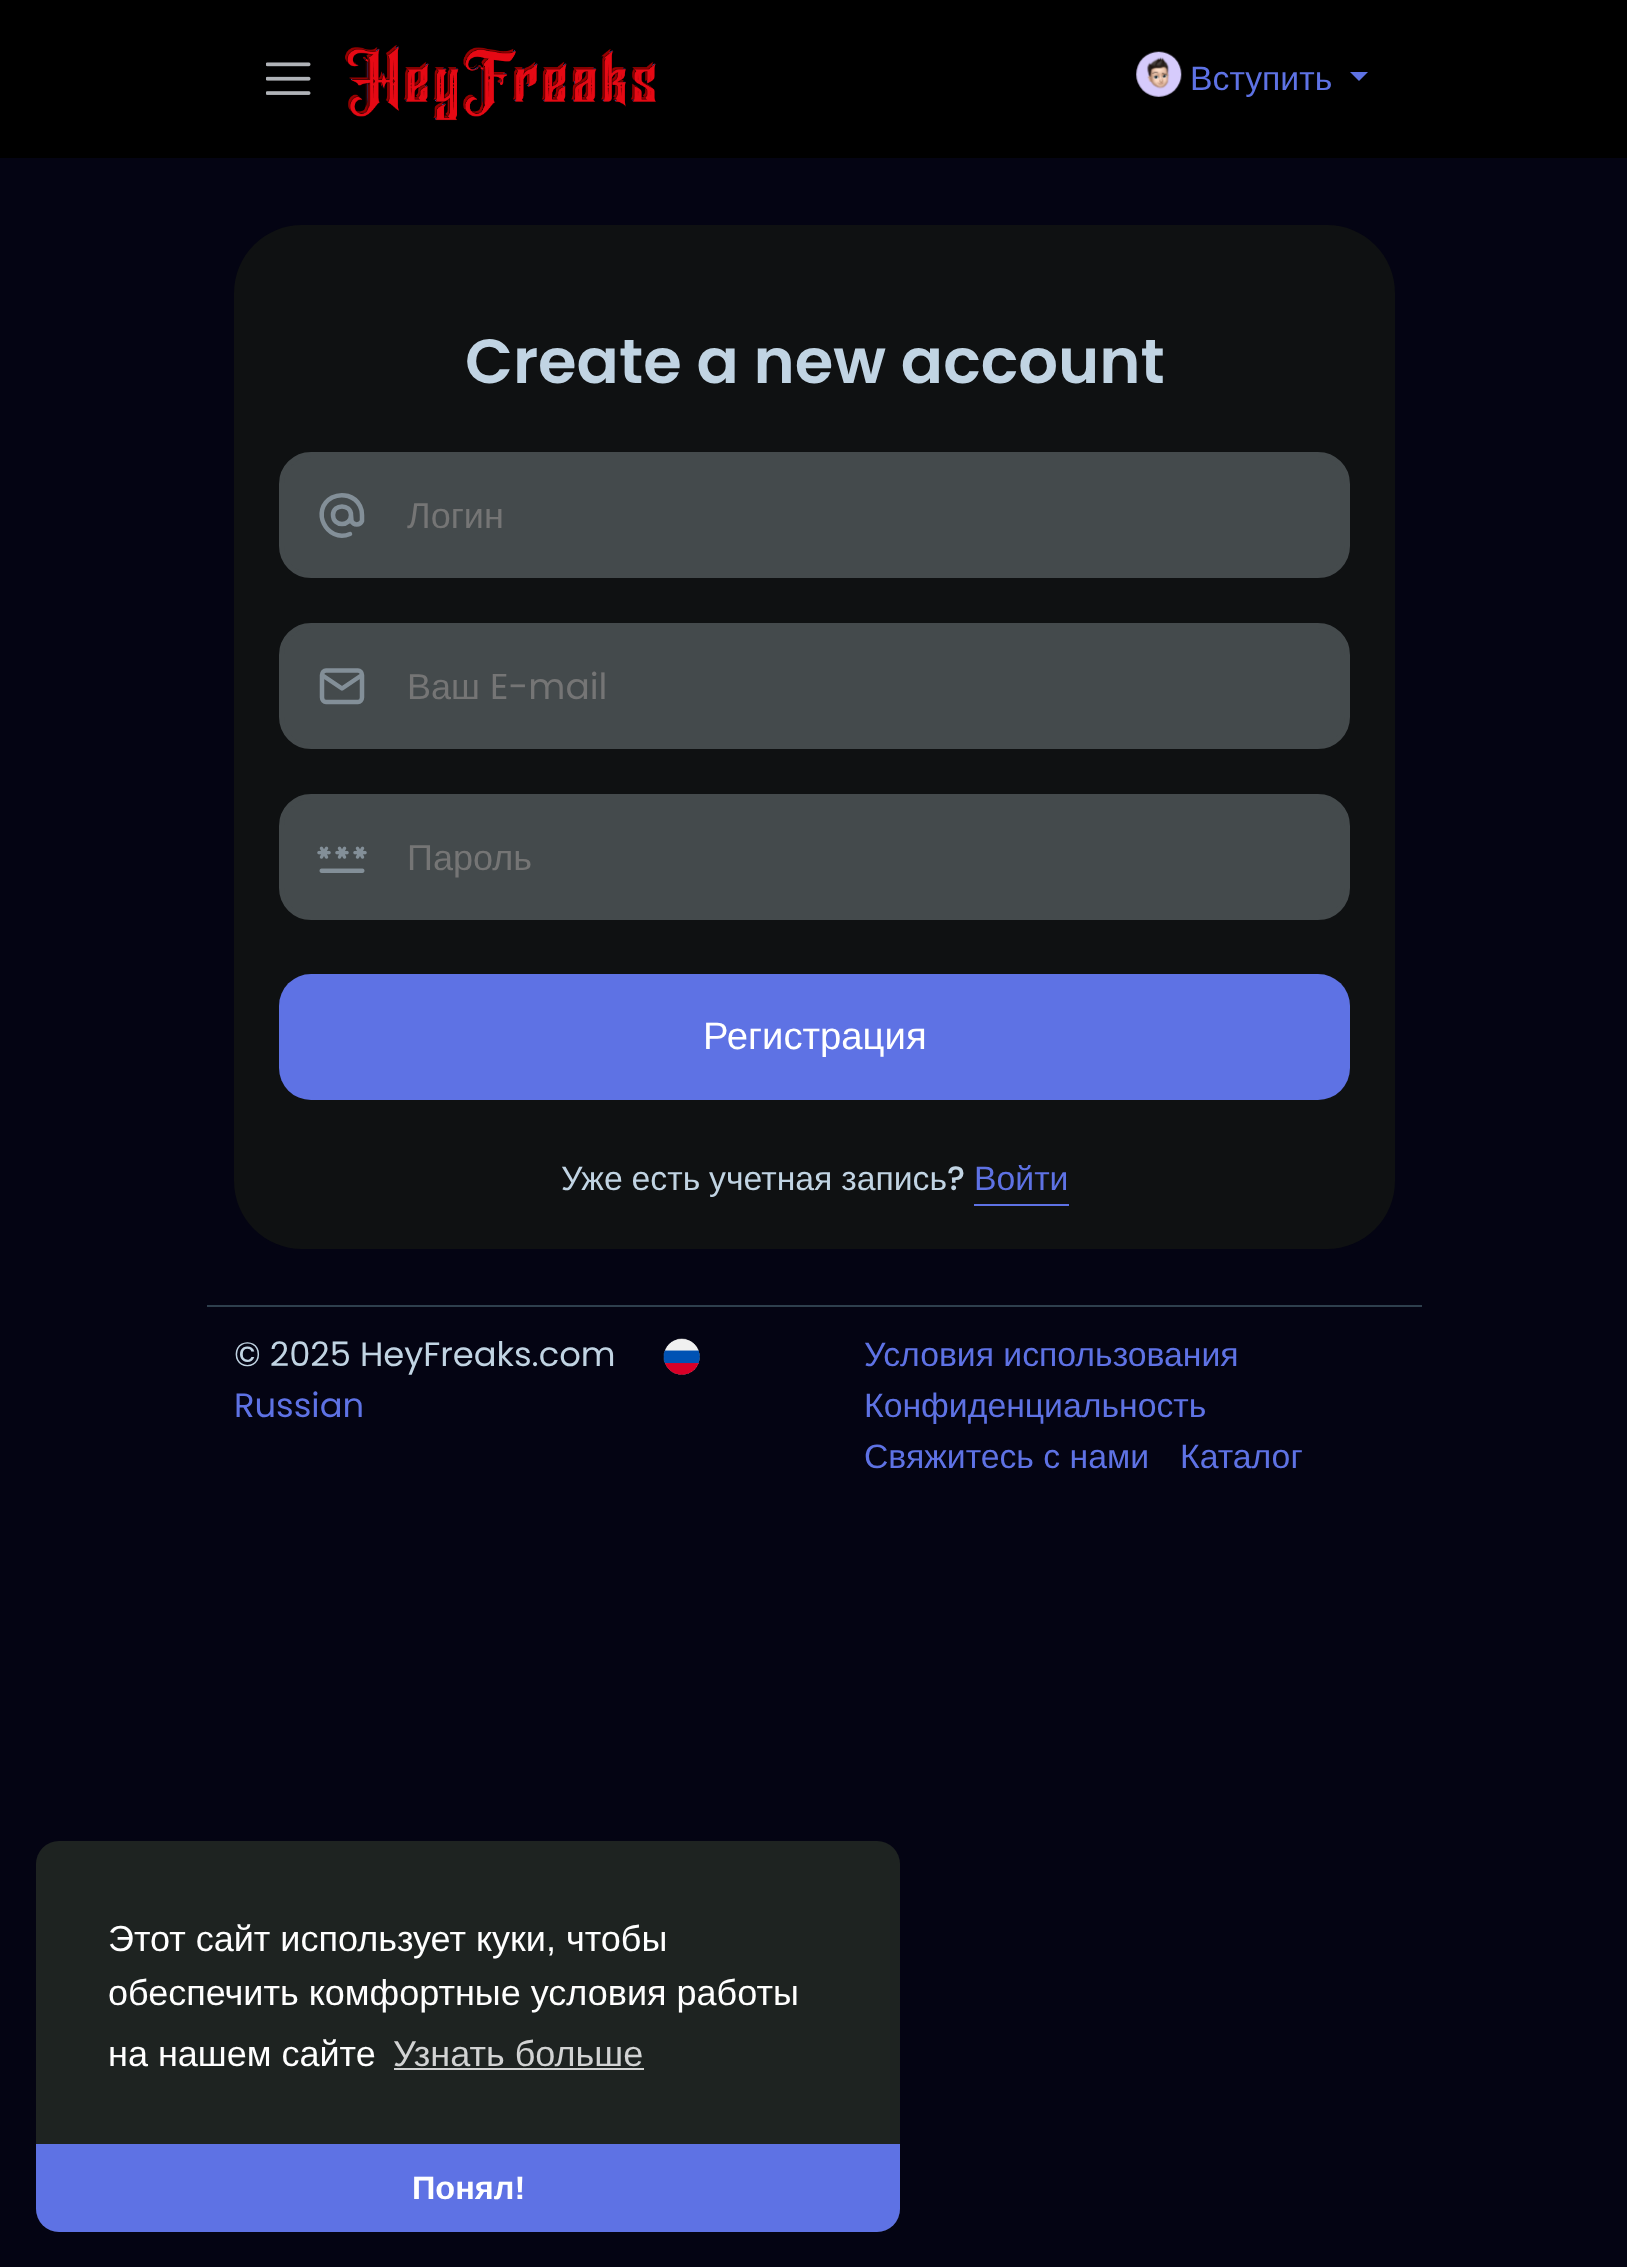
<!DOCTYPE html>
<meta charset="utf-8">
<style>body { margin: 0 } canvas { display: block }</style>
<canvas id="canvas" width="1627" height="2267"></canvas>
<script type="module">
  const canvas = document.getElementById("canvas");
  const ctx = canvas.getContext("2d");
  ctx.miterLimit = 4;
  ctx.fontKerning = "normal";
  async function loadImage(src) {
    const img = new Image();
    img.src = src;
    await img.decode();
    return img;
  }

  ctx.fillStyle = "#040413";
  ctx.fillRect(0, 0, 1627, 2267);
  ctx.fillStyle = "#000000";
  ctx.fillRect(0, 0, 1627, 158);
  ctx.drawImage(await loadImage("img1.png"), 266, 62, 45, 33);
  ctx.drawImage(await loadImage("img2.png"), 345, 45, 311, 76);
  ctx.drawImage(await loadImage("img3.png"), 1136, 51, 46, 46);
  ctx.font = "33.75px Liberation Sans";
  ctx.fillStyle = "#5e72e4";
  ctx.fillText("Вступить", 1190, 90);
  ctx.beginPath();
  ctx.moveTo(1350, 72);
  ctx.lineTo(1368, 72);
  ctx.lineTo(1359, 81);
  ctx.closePath();
  ctx.fill();
  ctx.fillStyle = "#0f1112";
  ctx.beginPath();
  ctx.roundRect(234, 225, 1161, 1024, 68);
  ctx.fill();
  ctx.font = "600 62.4px Poppins";
  ctx.fillStyle = "#c1d4e3";
  ctx.fillText("Create a new account", 465, 383);
  ctx.fillStyle = "#444a4c";
  ctx.beginPath();
  ctx.roundRect(281.5, 454.5, 1066, 121, 29.5);
  ctx.fill();
  ctx.strokeStyle = "#444a4c";
  ctx.lineWidth = 5;
  ctx.stroke();
  ctx.beginPath();
  ctx.moveTo(333, 515);
  ctx.bezierCurveTo(333, 527, 351, 527, 351, 515);
  ctx.bezierCurveTo(351, 503.5, 333, 503.5, 333, 515);
  ctx.moveTo(351, 515);
  ctx.lineTo(351.5, 521);
  ctx.bezierCurveTo(353.5, 525.5, 360, 525.5, 362, 521);
  ctx.lineTo(362, 515);
  ctx.bezierCurveTo(362, 512, 361.5, 509, 360, 506);
  ctx.bezierCurveTo(357.5, 501, 353, 497.5, 348, 496);
  ctx.bezierCurveTo(342.5, 494.5, 337, 495, 332, 497.5);
  ctx.bezierCurveTo(310, 509.5, 326.5, 543.5, 350, 534);
  ctx.strokeStyle = "#838f98";
  ctx.lineWidth = 4.5;
  ctx.lineCap = "round";
  ctx.lineJoin = "round";
  ctx.stroke();
  ctx.font = "36px Liberation Sans";
  ctx.fillStyle = "#757575";
  ctx.fillText("Логин", 407, 528);
  ctx.fillStyle = "#444a4c";
  ctx.beginPath();
  ctx.roundRect(281.5, 625.5, 1066, 121, 29.5);
  ctx.fill();
  ctx.strokeStyle = "#444a4c";
  ctx.lineWidth = 5;
  ctx.lineJoin = "miter";
  ctx.stroke();
  ctx.beginPath();
  ctx.moveTo(322, 675);
  ctx.bezierCurveTo(322, 672.5, 324, 670.5, 326, 670.5);
  ctx.lineTo(358, 670.5);
  ctx.bezierCurveTo(360, 670.5, 362, 672.5, 362, 675);
  ctx.lineTo(362, 697.5);
  ctx.bezierCurveTo(362, 700, 360, 702, 358, 702);
  ctx.lineTo(326, 702);
  ctx.bezierCurveTo(324, 702, 322, 700, 322, 697.5);
  ctx.closePath();
  ctx.moveTo(322, 675);
  ctx.lineTo(342, 688.5);
  ctx.lineTo(362, 675);
  ctx.strokeStyle = "#838f98";
  ctx.lineWidth = 4.5;
  ctx.lineJoin = "round";
  ctx.stroke();
  ctx.fillStyle = "#757575";
  ctx.fillText("Ваш", 407, 699);
  ctx.font = "36px Poppins";
  ctx.fillText("E-mail", 490, 699);
  ctx.fillStyle = "#444a4c";
  ctx.beginPath();
  ctx.roundRect(281.5, 796.5, 1066, 121, 29.5);
  ctx.fill();
  ctx.strokeStyle = "#444a4c";
  ctx.lineWidth = 5;
  ctx.lineJoin = "miter";
  ctx.stroke();
  ctx.drawImage(await loadImage("img4.png"), 317, 846, 50, 27);
  ctx.font = "36px Liberation Sans";
  ctx.fillStyle = "#757575";
  ctx.fillText("Пароль", 407, 870);
  ctx.fillStyle = "#5e72e4";
  ctx.beginPath();
  ctx.roundRect(279, 974, 1071, 126, 32);
  ctx.fill();
  ctx.font = "38.25px Liberation Sans";
  ctx.fillStyle = "#ffffff";
  ctx.fillText("Регистрация", 703, 1049);
  ctx.wordSpacing = "-0.5px";
  ctx.font = "33.75px Liberation Sans";
  ctx.fillStyle = "#c1d4e3";
  ctx.fillText("Уже есть учетная запись", 561, 1190);
  ctx.wordSpacing = "0px";
  ctx.font = "500 33.75px Poppins";
  ctx.fillText("?", 947, 1190);
  ctx.font = "33.75px Liberation Sans";
  ctx.fillStyle = "#5e72e4";
  ctx.fillText("Войти", 974, 1190);
  ctx.fillRect(974, 1204, 95, 2);
  ctx.fillStyle = "#2e3f4d";
  ctx.fillRect(207, 1305, 1215, 2);
  ctx.font = "33.75px Poppins";
  ctx.fillStyle = "#c1d4e3";
  ctx.fillText("© 2025 HeyFreaks.com", 234, 1366);
  ctx.drawImage(await loadImage("img5.png"), 663, 1338, 37, 37);
  ctx.fillStyle = "#5e72e4";
  ctx.fillText("Russian", 234, 1417);
  ctx.font = "33.75px Liberation Sans";
  ctx.fillText("Условия использования", 864, 1366);
  ctx.fillText("Конфиденциальность", 864, 1417);
  ctx.fillText("Свяжитесь с нами", 864, 1468);
  ctx.fillText("Каталог", 1180, 1468);
  ctx.fillStyle = "#1e2321";
  ctx.beginPath();
  ctx.roundRect(36, 1841, 864, 391, 23);
  ctx.fill();
  ctx.font = "36px Liberation Sans";
  ctx.fillStyle = "#ffffff";
  ctx.fillText("Этот сайт использует куки, чтобы", 108, 1951);
  ctx.fillText("обеспечить комфортные условия работы", 108, 2005);
  ctx.fillText("на нашем сайте", 108, 2066);
  ctx.fillStyle = "#d2d3d3";
  ctx.fillText("Узнать больше", 393, 2066);
  ctx.fillRect(394, 2068, 250, 2);
  ctx.fillStyle = "#5e72e4";
  ctx.beginPath();
  ctx.roundRect(36, 2144, 864, 88, [0, 0, 23, 23]);
  ctx.fill();
  ctx.font = "bold 32.5px Liberation Sans";
  ctx.fillStyle = "#ffffff";
  ctx.fillText("Понял!", 412, 2199);
</script>
